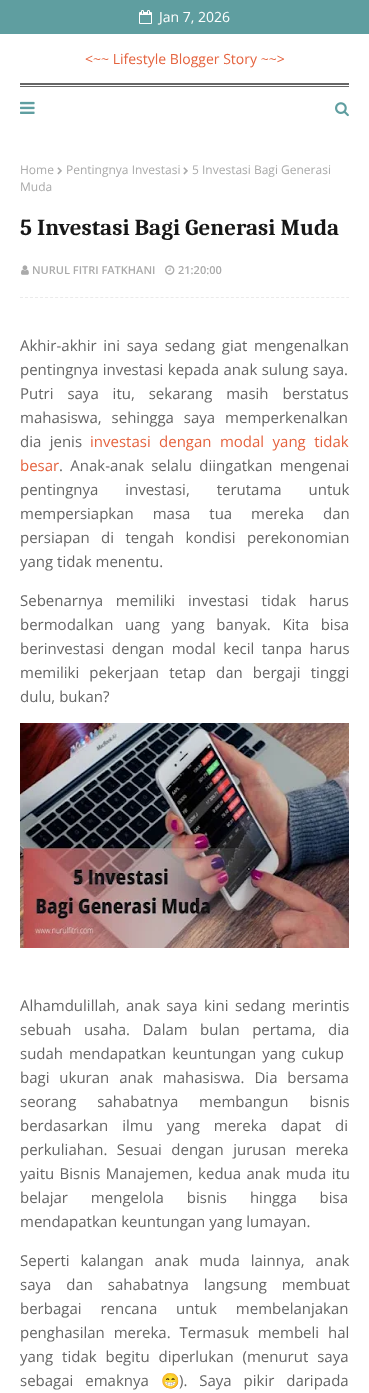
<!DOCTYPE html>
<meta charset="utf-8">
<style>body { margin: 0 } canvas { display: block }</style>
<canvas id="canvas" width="369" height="1393"></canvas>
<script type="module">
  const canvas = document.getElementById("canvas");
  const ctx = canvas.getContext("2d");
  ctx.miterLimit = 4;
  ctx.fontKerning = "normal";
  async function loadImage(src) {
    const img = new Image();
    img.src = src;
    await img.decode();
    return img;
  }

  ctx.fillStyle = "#ffffff";
  ctx.fillRect(0, 0, 369, 1393);
  ctx.fillStyle = "#5f9ea0";
  ctx.fillRect(0, 0, 369, 34);
  ctx.drawImage(await loadImage("img1.png"), 139, 10, 13, 14);
  ctx.font = "14px Open Sans";
  ctx.fillStyle = "#ffffff";
  ctx.fillText("Jan 7, 2026", 159, 22);
  ctx.fillStyle = "#e5633f";
  ctx.fillText("<~~ Lifestyle Blogger Story ~~>", 85, 64);
  ctx.fillStyle = "#666666";
  ctx.fillRect(20, 83, 329, 2);
  ctx.fillRect(20, 86, 329, 1);
  ctx.drawImage(await loadImage("img2.png"), 20, 101, 15, 13);
  ctx.drawImage(await loadImage("img3.png"), 335, 102, 14, 15);
  ctx.font = "12px Open Sans";
  ctx.fillStyle = "#aaaaaa";
  ctx.fillText("Home", 20, 174);
  ctx.drawImage(await loadImage("img4.png"), 57, 167, 5, 8);
  ctx.fillText("Pentingnya Investasi", 66, 174);
  ctx.drawImage(await loadImage("img4.png"), 183, 167, 5, 8);
  ctx.fillText("5 Investasi Bagi Generasi", 192, 174);
  ctx.fillText("Muda", 20, 191);
  ctx.font = "bold 23px Caladea";
  ctx.fillStyle = "#171717";
  ctx.fillText("5 Investasi Bagi Generasi Muda", 20, 235);
  ctx.drawImage(await loadImage("img5.png"), 21, 265, 8, 10);
  ctx.font = "600 11px Open Sans";
  ctx.fillStyle = "#aaaaaa";
  ctx.fillText("NURUL FITRI FATKHANI", 32, 274);
  ctx.drawImage(await loadImage("img6.png"), 165, 265, 10, 10);
  ctx.fillText("21:20:00", 178, 274);
  ctx.beginPath();
  ctx.moveTo(20, 297.5);
  ctx.lineTo(349, 297.5);
  ctx.strokeStyle = "#ebebeb";
  ctx.setLineDash([3, 2.02]);
  ctx.stroke();
  ctx.wordSpacing = "2.75px";
  ctx.font = "15px Open Sans";
  ctx.fillStyle = "#656565";
  ctx.fillText("Akhir-akhir ini saya sedang giat mengenalkan", 20, 351);
  ctx.wordSpacing = "0.5px";
  ctx.fillText("pentingnya investasi kepada anak sulung saya.", 20, 375);
  ctx.wordSpacing = "10px";
  ctx.fillText("Putri saya itu, sekarang masih berstatus", 20, 399);
  ctx.wordSpacing = "6px";
  ctx.fillText("mahasiswa, sehingga saya memperkenalkan", 20, 423);
  ctx.wordSpacing = "4.5px";
  ctx.fillText("dia jenis", 20, 447);
  ctx.fillStyle = "#e5633f";
  ctx.fillText("investasi dengan modal yang tidak", 90, 447);
  ctx.wordSpacing = "0px";
  ctx.fillText("besar", 20, 471);
  ctx.wordSpacing = "3.5px";
  ctx.fillStyle = "#656565";
  ctx.fillText(". Anak-anak selalu diingatkan mengenai", 59, 471);
  ctx.wordSpacing = "23px";
  ctx.fillText("pentingnya investasi, terutama untuk", 20, 495);
  ctx.wordSpacing = "15px";
  ctx.fillText("mempersiapkan masa tua mereka dan", 20, 519);
  ctx.wordSpacing = "7.5px";
  ctx.fillText("persiapan di tengah kondisi perekonomian", 20, 543);
  ctx.wordSpacing = "0px";
  ctx.fillText("yang tidak menentu.", 20, 567);
  ctx.wordSpacing = "9px";
  ctx.fillText("Sebenarnya memiliki investasi tidak harus", 20, 606);
  ctx.wordSpacing = "7.75px";
  ctx.fillText("bermodalkan uang yang banyak. Kita bisa", 20, 630);
  ctx.wordSpacing = "3.5px";
  ctx.fillText("berinvestasi dengan modal kecil tanpa harus", 20, 654);
  ctx.wordSpacing = "6.25px";
  ctx.fillText("memiliki pekerjaan tetap dan bergaji tinggi", 20, 678);
  ctx.wordSpacing = "0px";
  ctx.fillText("dulu, bukan?", 20, 702);
  ctx.drawImage(await loadImage("img7.png"), 20, 723, 329, 225);
  ctx.wordSpacing = "2.5px";
  ctx.fillText("Alhamdulillah, anak saya kini sedang merintis", 20, 1011);
  ctx.wordSpacing = "8.5px";
  ctx.fillText("sebuah usaha. Dalam bulan pertama, dia", 20, 1035);
  ctx.wordSpacing = "2px";
  ctx.fillText("sudah mendapatkan keuntungan yang cukup", 20, 1059);
  ctx.wordSpacing = "6px";
  ctx.fillText("bagi ukuran anak mahasiswa. Dia bersama", 20, 1083);
  ctx.wordSpacing = "17px";
  ctx.fillText("seorang sahabatnya membangun bisnis", 20, 1107);
  ctx.wordSpacing = "10px";
  ctx.fillText("berdasarkan ilmu yang mereka dapat di", 20, 1131);
  ctx.wordSpacing = "5.5px";
  ctx.fillText("perkuliahan. Sesuai dengan jurusan mereka", 20, 1155);
  ctx.wordSpacing = "1.5px";
  ctx.fillText("yaitu Bisnis Manajemen, kedua anak muda itu", 20, 1179);
  ctx.wordSpacing = "19px";
  ctx.fillText("belajar mengelola bisnis hingga bisa", 20, 1203);
  ctx.wordSpacing = "0px";
  ctx.fillText("mendapatkan keuntungan yang lumayan.", 20, 1227);
  ctx.wordSpacing = "7px";
  ctx.fillText("Seperti kalangan anak muda lainnya, anak", 20, 1266);
  ctx.wordSpacing = "11px";
  ctx.fillText("saya dan sahabatnya langsung membuat", 20, 1290);
  ctx.wordSpacing = "15px";
  ctx.fillText("berbagai rencana untuk membelanjakan", 20, 1314);
  ctx.wordSpacing = "5px";
  ctx.fillText("penghasilan mereka. Termasuk membeli hal", 20, 1338);
  ctx.fillText("yang tidak begitu diperlukan (menurut saya", 20, 1362);
  ctx.wordSpacing = "8px";
  ctx.fillText("sebagai emaknya", 20, 1386);
  ctx.wordSpacing = "0px";
  ctx.font = "15px Noto Color Emoji";
  ctx.fillText("😁", 161, 1386);
  ctx.wordSpacing = "8px";
  ctx.font = "15px Open Sans";
  ctx.fillText("). Saya pikir daripada", 179, 1386);
</script>
